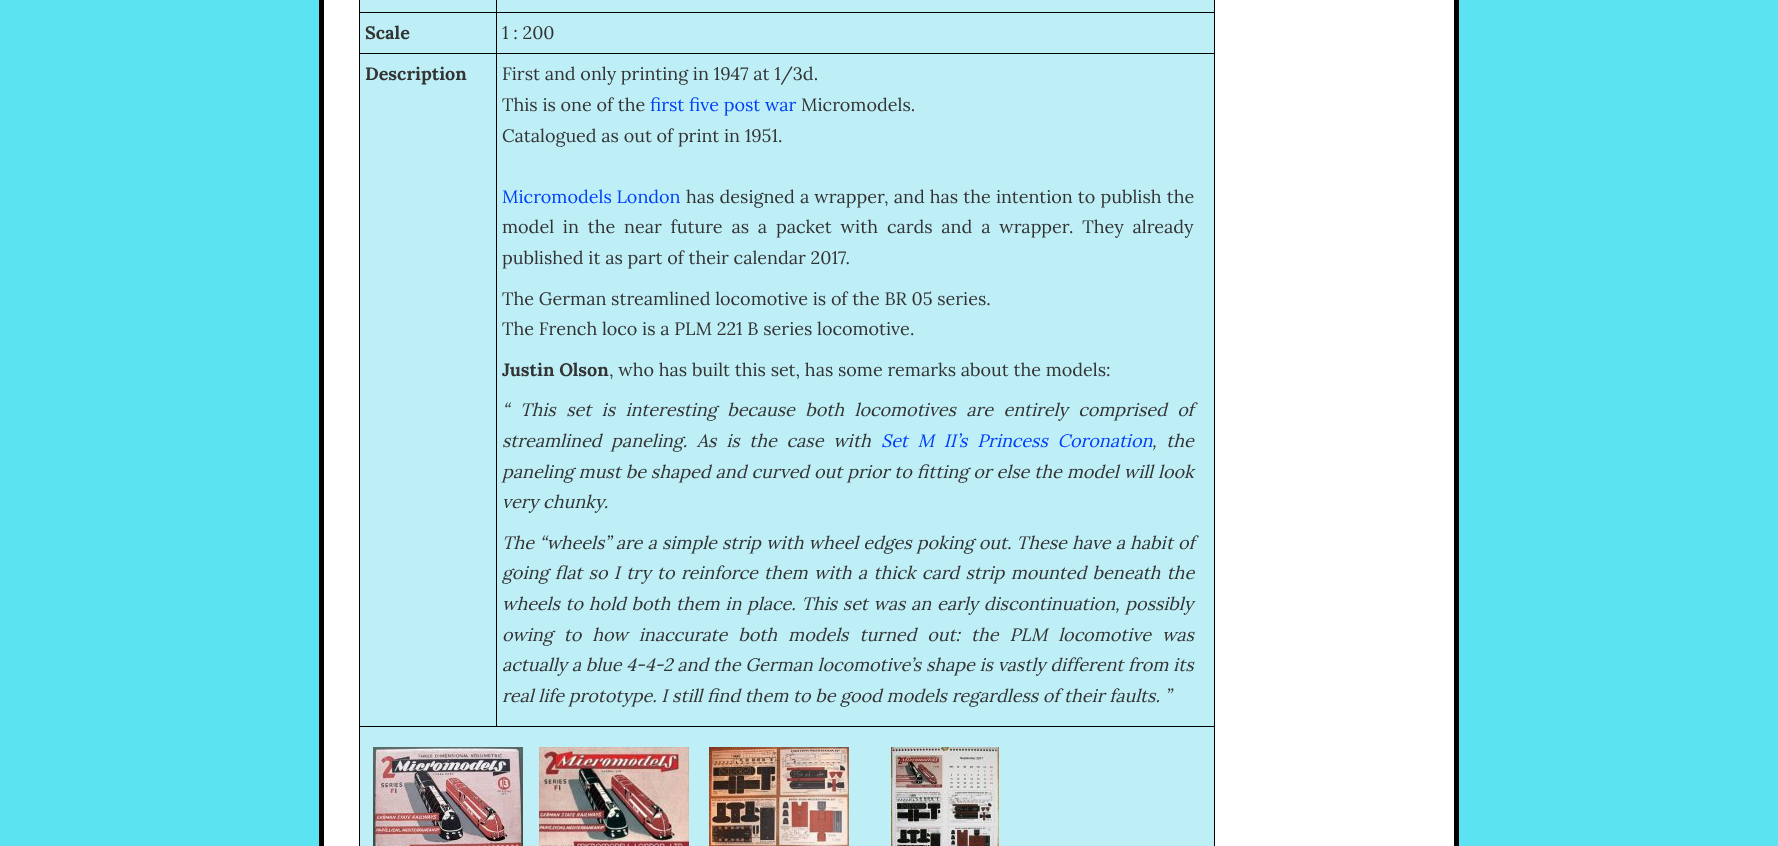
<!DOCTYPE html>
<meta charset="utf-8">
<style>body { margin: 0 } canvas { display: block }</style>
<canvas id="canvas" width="1778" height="846"></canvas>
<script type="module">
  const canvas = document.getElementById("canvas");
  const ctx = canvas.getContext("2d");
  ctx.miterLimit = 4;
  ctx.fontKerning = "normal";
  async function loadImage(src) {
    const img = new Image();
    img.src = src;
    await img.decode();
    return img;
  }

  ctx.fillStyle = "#5ce3f2";
  ctx.fillRect(0, 0, 1778, 846);
  ctx.fillStyle = "#ffffff";
  ctx.fillRect(324, 0, 1130, 846);
  ctx.fillStyle = "#000000";
  ctx.fillRect(1454, 0, 5, 846);
  ctx.fillRect(319, 0, 5, 846);
  ctx.fillStyle = "#beeff7";
  ctx.fillRect(360, 0, 854, 846);
  ctx.fillStyle = "#000000";
  ctx.fillRect(496, 12, 719, 1);
  ctx.fillRect(496, 53, 719, 1);
  ctx.fillRect(359, 726, 856, 1);
  ctx.fillRect(496, 53, 1, 674);
  ctx.fillRect(359, 53, 138, 1);
  ctx.fillRect(496, 12, 1, 42);
  ctx.fillRect(359, 12, 138, 1);
  ctx.fillRect(496, 0, 1, 13);
  ctx.fillRect(359, 726, 1, 120);
  ctx.fillRect(359, 53, 1, 674);
  ctx.fillRect(359, 0, 1, 54);
  ctx.font = "bold 18px Lora";
  ctx.fillStyle = "#333333";
  ctx.fillText("Scale", 365, 39);
  ctx.fillStyle = "#000000";
  ctx.fillRect(1214, 726, 1, 120);
  ctx.fillRect(1214, 53, 1, 674);
  ctx.fillRect(1214, 0, 1, 54);
  ctx.font = "18px Lora";
  ctx.fillStyle = "#333333";
  ctx.fillText("1 : 200", 502, 39);
  ctx.font = "bold 18px Lora";
  ctx.fillText("Description", 365, 80);
  ctx.font = "18px Lora";
  ctx.fillText("First and only printing in 1947 at 1/3d.", 502, 80);
  ctx.fillText("This is one of the", 502, 111);
  ctx.fillStyle = "#0041f7";
  ctx.fillText("first five post war", 650, 111);
  ctx.fillStyle = "#333333";
  ctx.fillText("Micromodels.", 801, 111);
  ctx.fillText("Catalogued as out of print in 1951.", 502, 142);
  ctx.fillStyle = "#0041f7";
  ctx.fillText("Micromodels London", 502, 203);
  ctx.wordSpacing = "0.4px";
  ctx.fillStyle = "#333333";
  ctx.fillText("has designed a wrapper, and has the intention to publish the", 686, 203);
  ctx.wordSpacing = "4.1px";
  ctx.fillText("model in the near future as a packet with cards and a wrapper. They already", 502, 233);
  ctx.wordSpacing = "0px";
  ctx.fillText("published it as part of their calendar 2017.", 502, 264);
  ctx.fillText("The German streamlined locomotive is of the BR 05 series.", 502, 305);
  ctx.fillText("The French loco is a PLM 221 B series locomotive.", 502, 335);
  ctx.font = "bold 18px Lora";
  ctx.fillText("Justin Olson", 502, 376);
  ctx.font = "18px Lora";
  ctx.fillText(", who has built this set, has some remarks about the models:", 609, 376);
  ctx.font = "italic 18px Lora";
  ctx.fillText("“", 502, 416);
  ctx.wordSpacing = "5.75px";
  ctx.fillText("This set is interesting because both locomotives are entirely comprised of", 520, 416);
  ctx.wordSpacing = "5px";
  ctx.fillText("streamlined paneling. As is the case with", 502, 447);
  ctx.fillStyle = "#0041f7";
  ctx.fillText("Set M II’s Princess Coronation", 881, 447);
  ctx.fillStyle = "#333333";
  ctx.fillText(", the", 1152, 447);
  ctx.wordSpacing = "0.25px";
  ctx.fillText("paneling must be shaped and curved out prior to fitting or else the model will look", 502, 478);
  ctx.wordSpacing = "0px";
  ctx.fillText("very chunky.", 502, 508);
  ctx.wordSpacing = "0.4px";
  ctx.fillText("The “wheels” are a simple strip with wheel edges poking out. These have a habit of", 502, 549);
  ctx.wordSpacing = "1.6px";
  ctx.fillText("going flat so I try to reinforce them with a thick card strip mounted beneath the", 502, 579);
  ctx.wordSpacing = "1px";
  ctx.fillText("wheels to hold both them in place. This set was an early discontinuation, possibly", 502, 610);
  ctx.wordSpacing = "6.25px";
  ctx.fillText("owing to how inaccurate both models turned out: the PLM locomotive was", 502, 641);
  ctx.wordSpacing = "0px";
  ctx.fillText("actually a blue 4-4-2 and the German locomotive’s shape is vastly different from its", 502, 671);
  ctx.fillText("real life prototype. I still find them to be good models regardless of their faults. ”", 502, 702);
  ctx.drawImage(await loadImage("img1.png"), 373, 747, 150, 99);
  ctx.drawImage(await loadImage("img2.png"), 539, 747, 150, 99);
  ctx.drawImage(await loadImage("img3.png"), 709, 747, 140, 99);
  ctx.drawImage(await loadImage("img4.png"), 891, 747, 108, 99);
</script>
